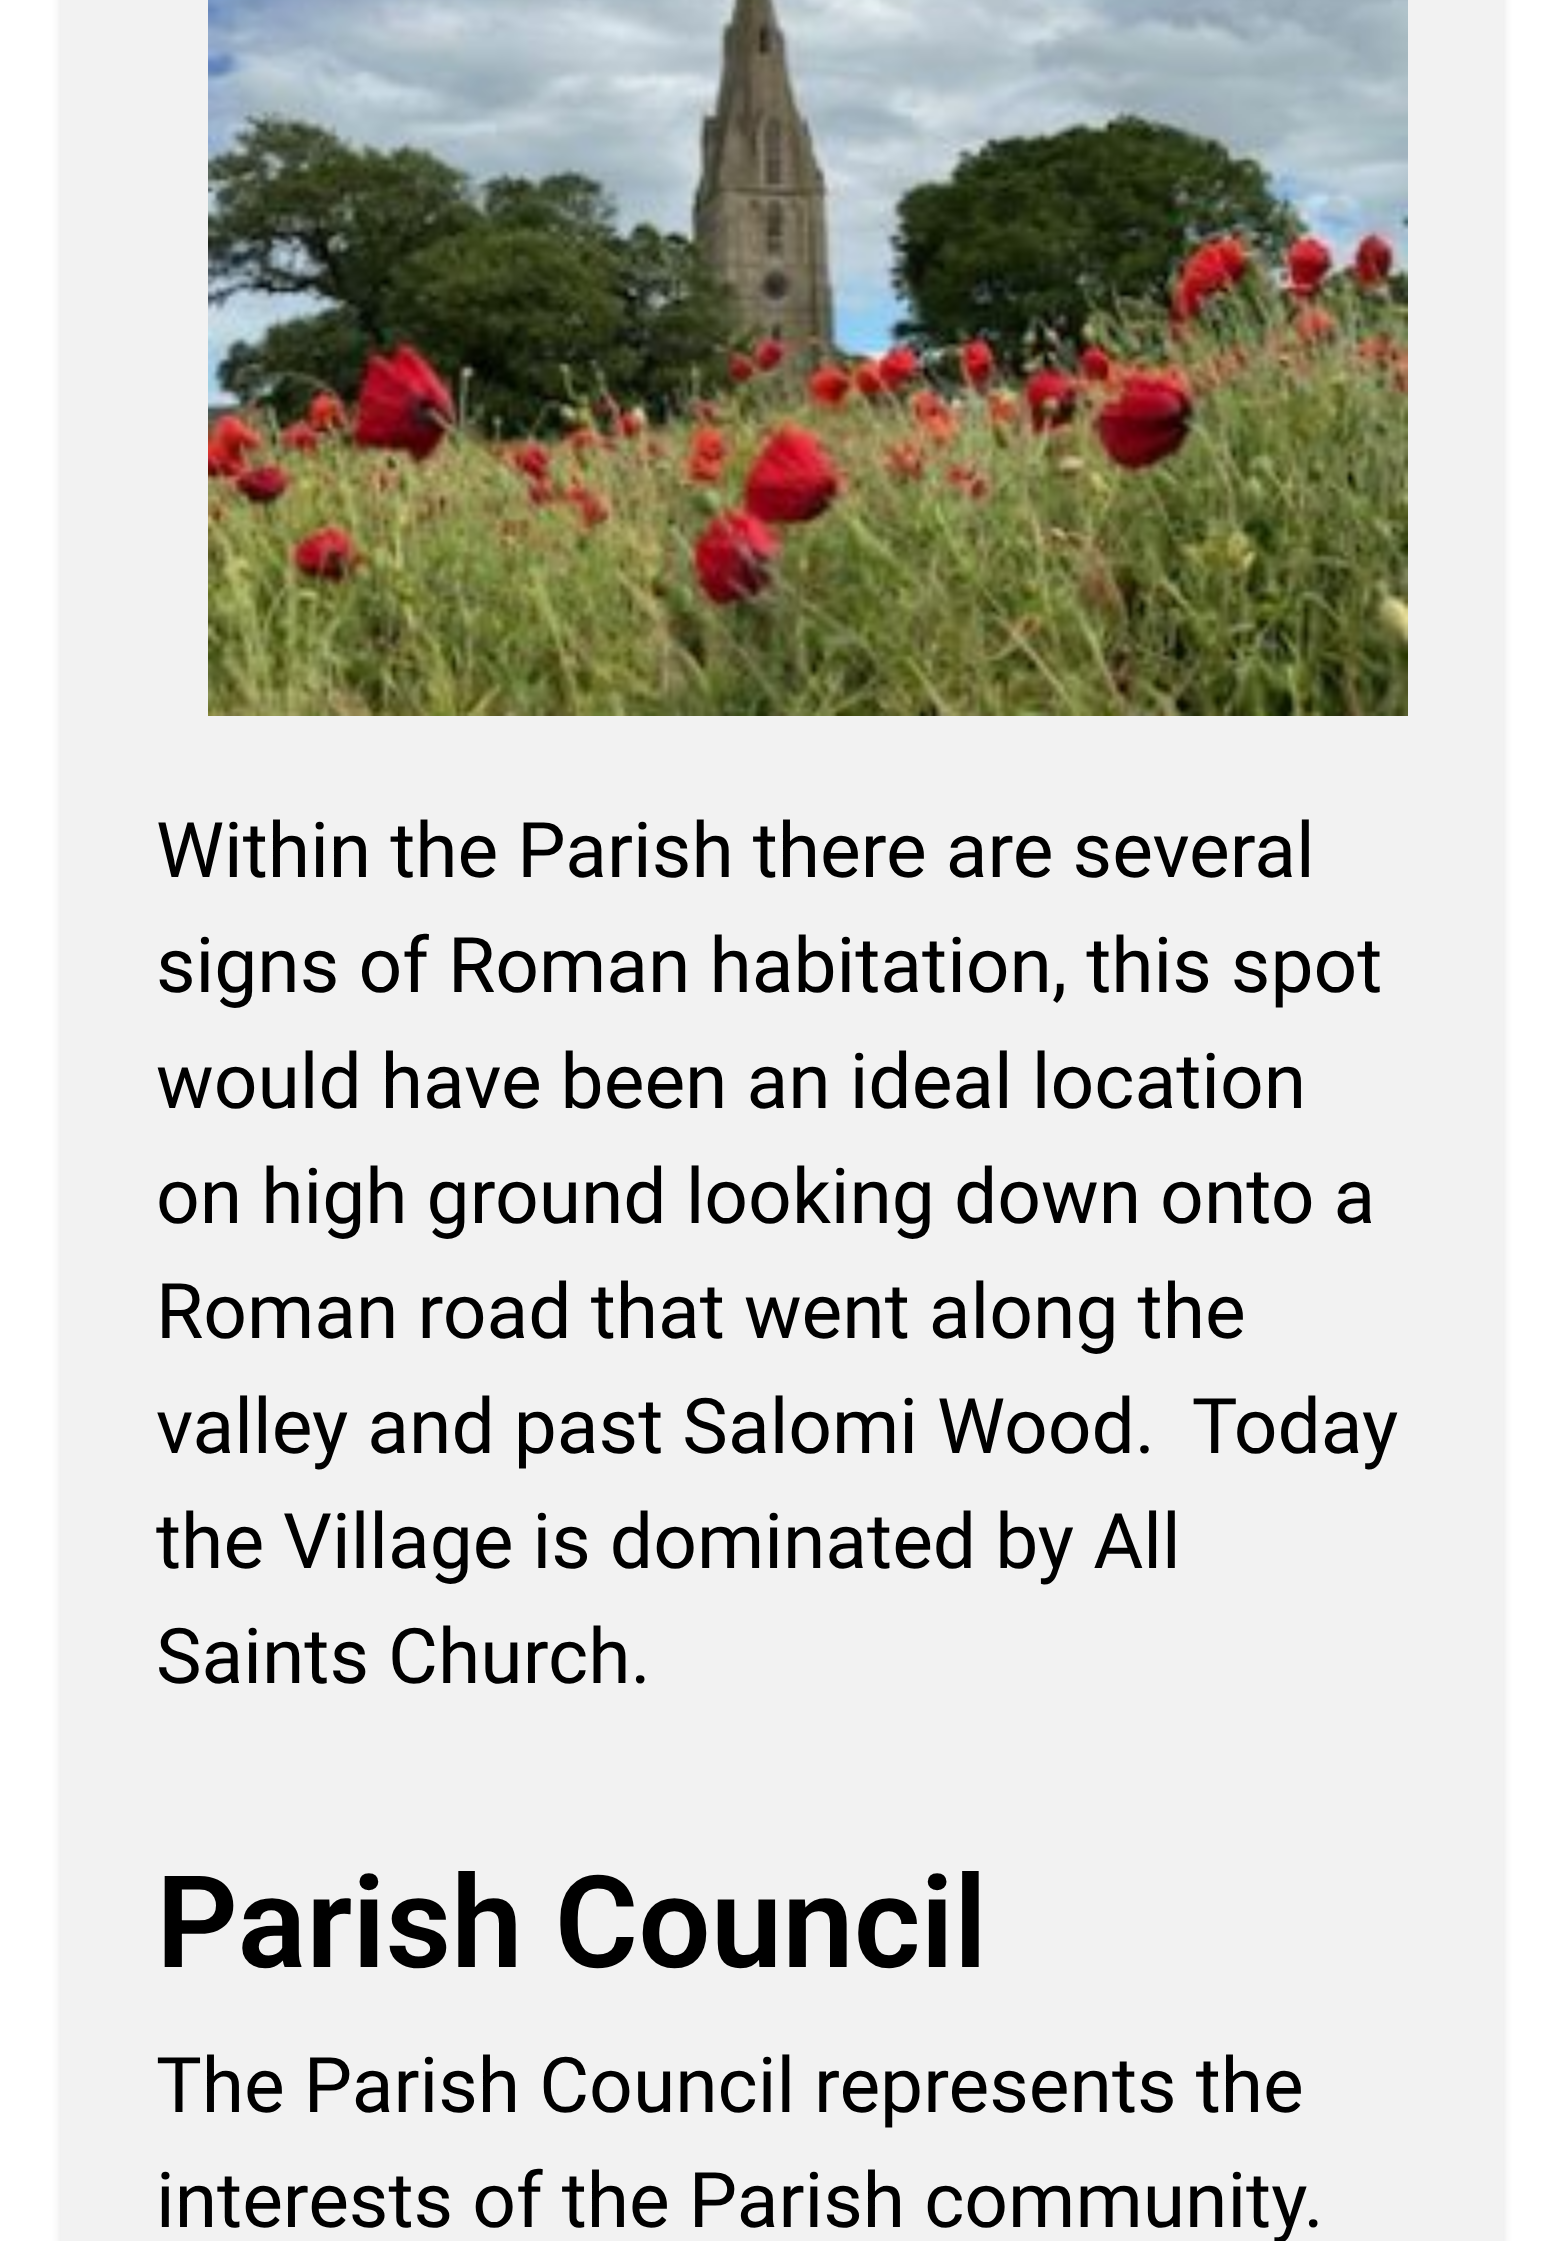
<!DOCTYPE html>
<meta charset="utf-8">
<style>body { margin: 0 } canvas { display: block }</style>
<canvas id="canvas" width="1561" height="2241"></canvas>
<script type="module">
  const canvas = document.getElementById("canvas");
  const ctx = canvas.getContext("2d");
  ctx.miterLimit = 4;
  ctx.fontKerning = "normal";
  async function loadImage(src) {
    const img = new Image();
    img.src = src;
    await img.decode();
    return img;
  }

  ctx.fillStyle = "#ffffff";
  ctx.fillRect(0, 0, 1561, 2241);
  ctx.fillStyle = "rgba(0, 0, 0, 0.1)";
  ctx.filter = "blur(4px)";
  ctx.beginPath();
  ctx.rect(60, -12, 1444, 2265);
  ctx.fill();
  ctx.filter = "none";
  ctx.fillStyle = "#f2f2f2";
  ctx.fillRect(61, 0, 1442, 2241);
  ctx.drawImage(await loadImage("img1.png"), 208, 0, 1200, 716);
  ctx.font = "76.75px Roboto";
  ctx.fillStyle = "#000000";
  ctx.fillText("Within the Parish there are several", 156, 877);
  ctx.fillText("signs of Roman habitation, this spot", 156, 992);
  ctx.fillText("would have been an ideal location", 156, 1108);
  ctx.fillText("on high ground looking down onto a", 156, 1223);
  ctx.fillText("Roman road that went along the", 156, 1338);
  ctx.fillText("valley and past Salomi Wood.  Today", 156, 1453);
  ctx.fillText("the Village is dominated by All", 156, 1568);
  ctx.fillText("Saints Church.", 156, 1683);
  ctx.font = "600 128px Roboto";
  ctx.fillText("Parish Council", 156, 1967);
  ctx.font = "76.75px Roboto";
  ctx.fillText("The Parish Council represents the", 156, 2112);
  ctx.fillText("interests of the Parish community.", 156, 2227);
</script>
